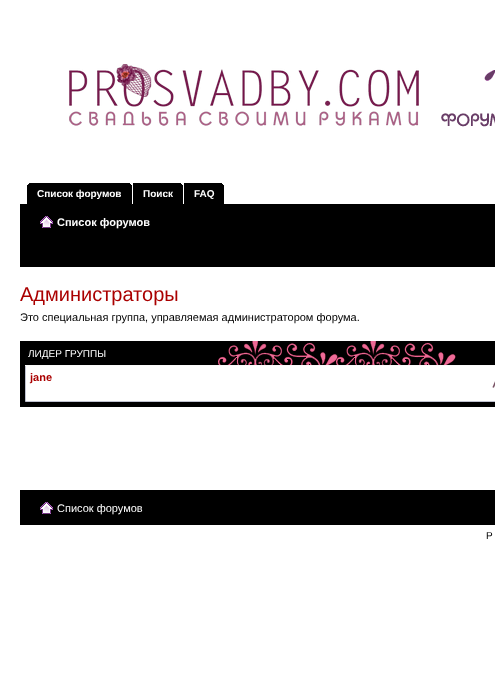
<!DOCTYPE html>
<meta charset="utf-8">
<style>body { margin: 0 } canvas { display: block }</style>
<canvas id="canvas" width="495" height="680"></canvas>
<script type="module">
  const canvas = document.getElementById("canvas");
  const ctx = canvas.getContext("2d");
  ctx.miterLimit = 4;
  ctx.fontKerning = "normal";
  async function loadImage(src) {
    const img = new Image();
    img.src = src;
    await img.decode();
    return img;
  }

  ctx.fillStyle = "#ffffff";
  ctx.fillRect(0, 0, 495, 680);
  ctx.drawImage(await loadImage("img1.png"), 69, 64, 426, 63);
  ctx.drawImage(await loadImage("img2.png"), 27, 183, 105, 21);
  ctx.drawImage(await loadImage("img3.png"), 130, 183, 2, 2);
  ctx.font = "bold 10px Liberation Sans";
  ctx.fillText("Список форумов", 37, 197);
  ctx.fillStyle = "#000000";
  ctx.fillRect(133, 183, 50, 21);
  ctx.drawImage(await loadImage("img3.png"), 181, 183, 2, 2);
  ctx.fillStyle = "#ffffff";
  ctx.fillText("Поиск", 143, 197);
  ctx.fillStyle = "#000000";
  ctx.fillRect(184, 183, 40, 21);
  ctx.drawImage(await loadImage("img3.png"), 222, 183, 2, 2);
  ctx.fillStyle = "#ffffff";
  ctx.fillText("FAQ", 194, 197);
  ctx.fillStyle = "#000000";
  ctx.fillRect(20, 204, 475, 63);
  ctx.drawImage(await loadImage("img4.png"), 40, 216, 13, 12);
  ctx.font = "bold 11px Liberation Sans";
  ctx.fillStyle = "#ffffff";
  ctx.fillText("Список форумов", 57, 226);
  ctx.font = "20px Liberation Sans";
  ctx.fillStyle = "#aa0000";
  ctx.fillText("Администраторы", 20, 301);
  ctx.font = "11px Liberation Sans";
  ctx.fillStyle = "#000000";
  ctx.fillText("Это специальная группа, управляемая администратором форума.", 20, 321);
  ctx.fillRect(20, 341, 475, 66);
  ctx.drawImage(await loadImage("img5.png"), 217, 341, 239, 24);
  ctx.font = "10px Liberation Sans";
  ctx.fillStyle = "#ffffff";
  ctx.fillText("ЛИДЕР ГРУППЫ", 28, 357);
  ctx.beginPath();
  ctx.rect(25.5, 365.5, 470, 36);
  ctx.fill();
  ctx.strokeStyle = "#bfc1cf";
  ctx.stroke();
  ctx.fillStyle = "#fafafa";
  ctx.fillRect(25, 365, 470, 1);
  ctx.font = "bold 11px Liberation Sans";
  ctx.fillStyle = "#aa0000";
  ctx.fillText("jane", 30, 381);
  ctx.drawImage(await loadImage("img6.png"), 492, 381, 3, 7);
  ctx.fillStyle = "#000000";
  ctx.fillRect(20, 490, 475, 35);
  ctx.drawImage(await loadImage("img4.png"), 40, 502, 13, 12);
  ctx.font = "11px Liberation Sans";
  ctx.fillStyle = "#ffffff";
  ctx.fillText("Список форумов", 57, 512);
  ctx.font = "10px Liberation Sans";
  ctx.fillStyle = "#000000";
  ctx.fillText("P", 486, 539);
</script>
